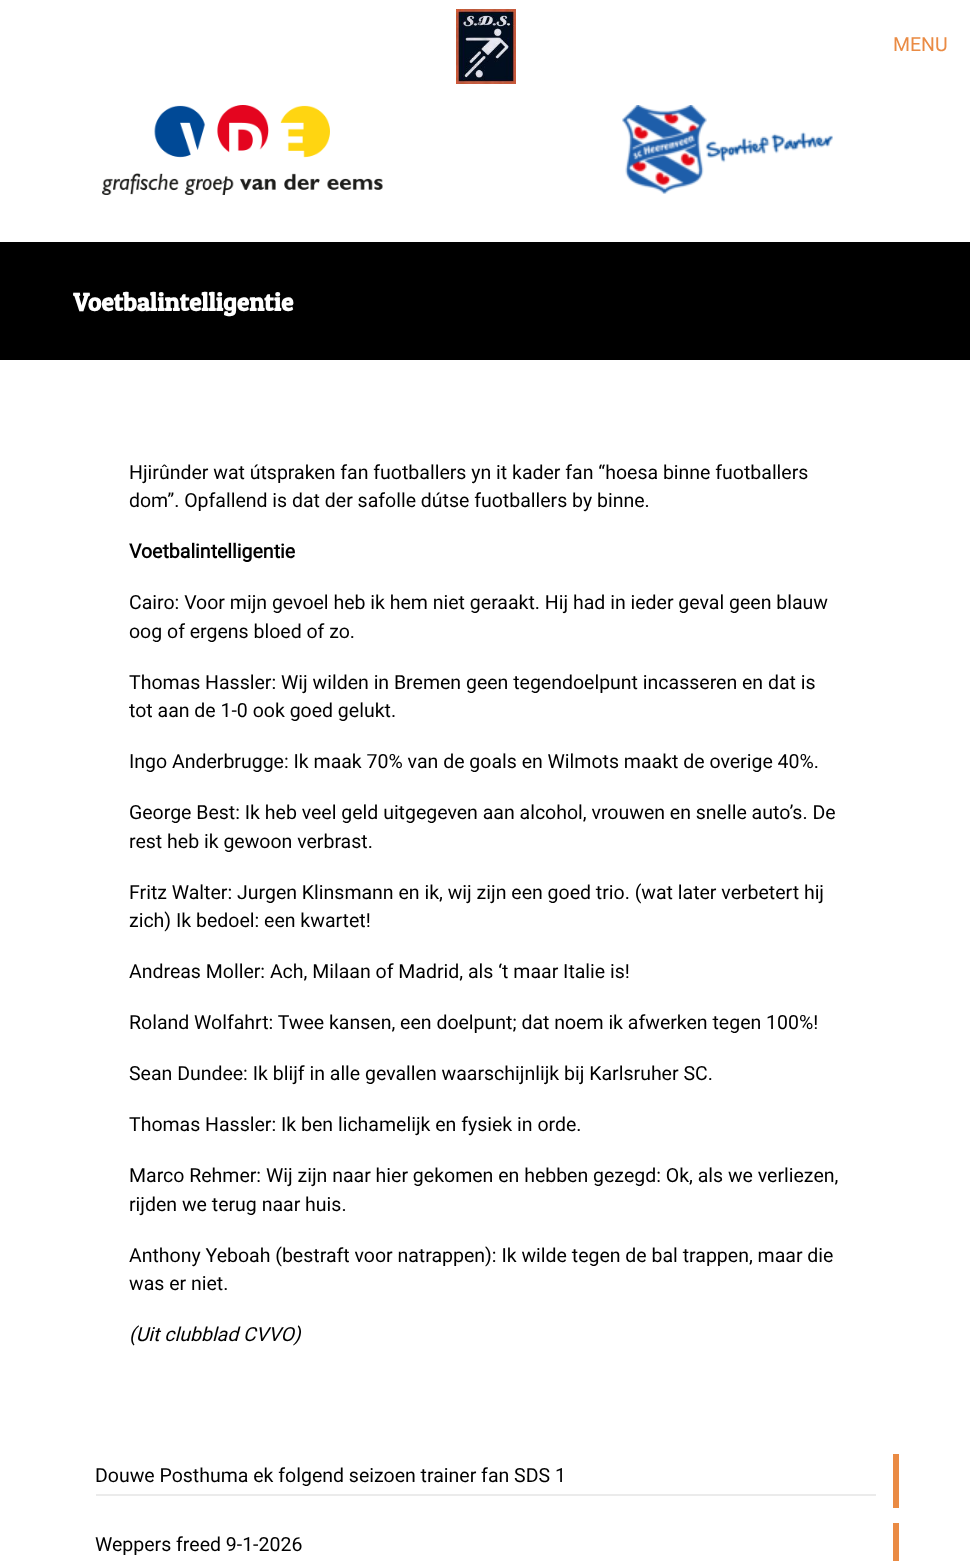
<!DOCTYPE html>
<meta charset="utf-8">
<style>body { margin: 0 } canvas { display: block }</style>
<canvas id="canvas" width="970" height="1561"></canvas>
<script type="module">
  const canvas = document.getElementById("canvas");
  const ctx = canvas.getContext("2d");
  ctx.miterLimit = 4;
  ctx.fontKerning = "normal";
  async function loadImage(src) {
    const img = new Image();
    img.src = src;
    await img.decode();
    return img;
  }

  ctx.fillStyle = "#ffffff";
  ctx.fillRect(0, 0, 970, 1561);
  ctx.drawImage(await loadImage("img1.png"), 456, 9, 60, 75);
  ctx.font = "19.5px Roboto";
  ctx.fillStyle = "#ea8b44";
  ctx.fillText("MENU", 893, 51);
  ctx.drawImage(await loadImage("img2.png"), 102, 105, 281, 90);
  ctx.drawImage(await loadImage("img3.png"), 622, 105, 211, 89);
  ctx.fillStyle = "#000000";
  ctx.fillRect(0, 242, 970, 118);
  ctx.font = "bold 25.5px Patua One";
  ctx.fillStyle = "#ffffff";
  ctx.fillText("Voetbalintelligentie", 73, 311);
  ctx.font = "19.5px Roboto";
  ctx.fillStyle = "#000000";
  ctx.fillText("Hjirûnder wat útspraken fan fuotballers yn it kader fan “hoesa binne fuotballers", 129, 479);
  ctx.fillText("dom”. Opfallend is dat der safolle dútse fuotballers by binne.", 129, 507);
  ctx.font = "bold 19.5px Roboto";
  ctx.fillText("Voetbalintelligentie", 129, 558);
  ctx.font = "19.5px Roboto";
  ctx.fillText("Cairo: Voor mijn gevoel heb ik hem niet geraakt. Hij had in ieder geval geen blauw", 129, 609);
  ctx.fillText("oog of ergens bloed of zo.", 129, 638);
  ctx.fillText("Thomas Hassler: Wij wilden in Bremen geen tegendoelpunt incasseren en dat is", 129, 689);
  ctx.fillText("tot aan de 1-0 ook goed gelukt.", 129, 717);
  ctx.fillText("Ingo Anderbrugge: Ik maak 70% van de goals en Wilmots maakt de overige 40%.", 129, 768);
  ctx.fillText("George Best: Ik heb veel geld uitgegeven aan alcohol, vrouwen en snelle auto’s. De", 129, 819);
  ctx.fillText("rest heb ik gewoon verbrast.", 129, 848);
  ctx.fillText("Fritz Walter: Jurgen Klinsmann en ik, wij zijn een goed trio. (wat later verbetert hij", 129, 899);
  ctx.fillText("zich) Ik bedoel: een kwartet!", 129, 927);
  ctx.fillText("Andreas Moller: Ach, Milaan of Madrid, als ‘t maar Italie is!", 129, 978);
  ctx.fillText("Roland Wolfahrt: Twee kansen, een doelpunt; dat noem ik afwerken tegen 100%!", 129, 1029);
  ctx.fillText("Sean Dundee: Ik blijf in alle gevallen waarschijnlijk bij Karlsruher SC.", 129, 1080);
  ctx.fillText("Thomas Hassler: Ik ben lichamelijk en fysiek in orde.", 129, 1131);
  ctx.fillText("Marco Rehmer: Wij zijn naar hier gekomen en hebben gezegd: Ok, als we verliezen,", 129, 1182);
  ctx.fillText("rijden we terug naar huis.", 129, 1211);
  ctx.fillText("Anthony Yeboah (bestraft voor natrappen): Ik wilde tegen de bal trappen, maar die", 129, 1262);
  ctx.fillText("was er niet.", 129, 1290);
  ctx.font = "italic 19.5px Roboto";
  ctx.fillText("(Uit clubblad CVVO)", 129, 1341);
  ctx.fillStyle = "#ebebeb";
  ctx.fillRect(96, 1494, 780, 2);
  ctx.font = "19.5px Roboto";
  ctx.fillStyle = "#000000";
  ctx.fillText("Douwe Posthuma ek folgend seizoen trainer fan SDS 1", 95, 1482);
  ctx.fillStyle = "#ea8b44";
  ctx.fillRect(893, 1454, 6, 54);
  ctx.fillStyle = "#000000";
  ctx.fillText("Weppers freed 9-1-2026", 95, 1551);
  ctx.fillStyle = "#ea8b44";
  ctx.fillRect(893, 1523, 6, 38);
</script>
